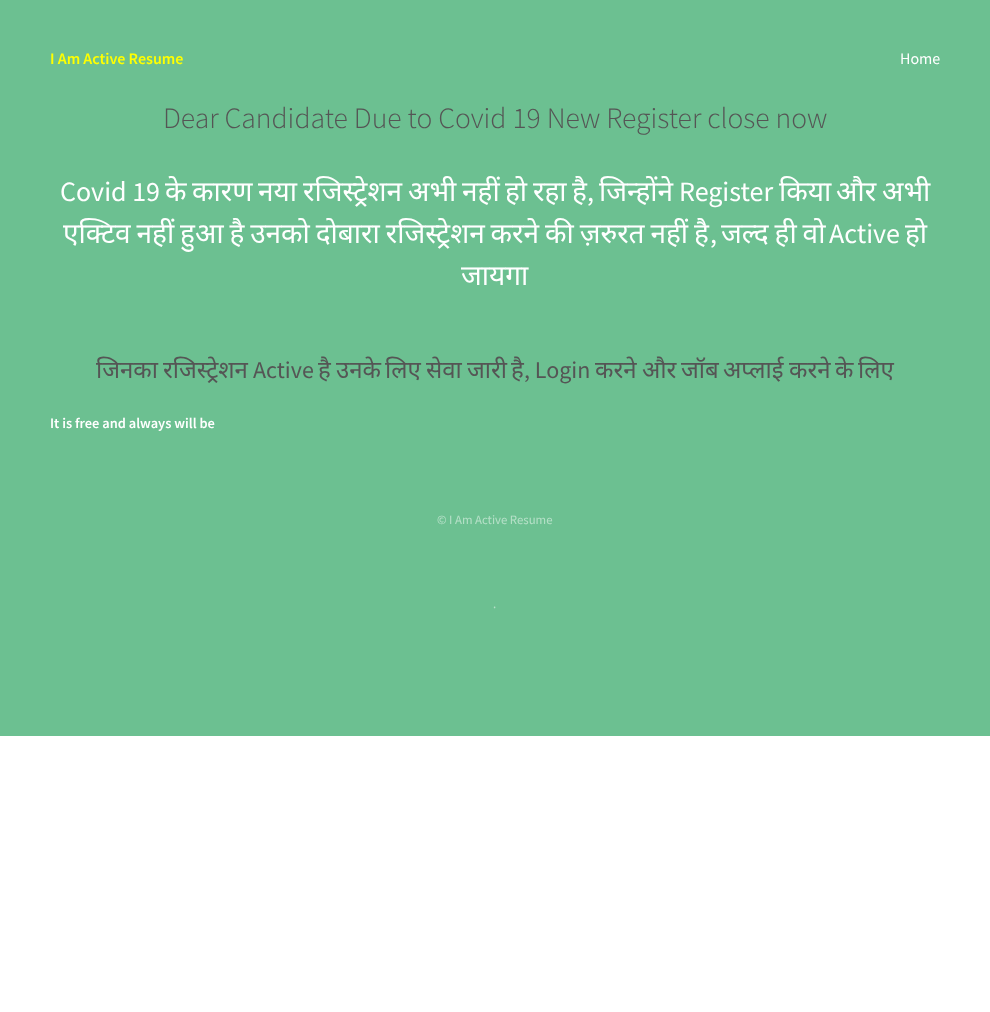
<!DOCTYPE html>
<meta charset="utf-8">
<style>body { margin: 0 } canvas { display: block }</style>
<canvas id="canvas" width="990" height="1012"></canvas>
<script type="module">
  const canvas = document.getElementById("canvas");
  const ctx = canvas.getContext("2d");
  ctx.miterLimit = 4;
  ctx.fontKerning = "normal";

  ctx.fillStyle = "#ffffff";
  ctx.fillRect(0, 0, 990, 1012);
  ctx.fillStyle = "#6cc091";
  ctx.fillRect(0, 0, 990, 736);
  ctx.font = "600 16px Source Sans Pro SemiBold";
  ctx.fillStyle = "#ffff00";
  ctx.fillText("I Am Active Resume", 50, 64);
  ctx.font = "16px Source Sans Pro";
  ctx.fillStyle = "#ffffff";
  ctx.fillText("Home", 900, 64);
  ctx.font = "300 29.6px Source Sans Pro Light";
  ctx.fillStyle = "#555555";
  ctx.fillText("Dear Candidate Due to Covid 19 New Register close now", 163, 128);
  ctx.font = "28px Source Sans Pro";
  ctx.fillStyle = "#ffffff";
  ctx.fillText("Covid 19", 60, 201);
  ctx.font = "28px Noto Sans";
  ctx.fillText("के", 165, 201);
  ctx.fillText("कारण", 192, 201);
  ctx.fillText("नया", 258, 201);
  ctx.fillText("रजिस्ट्रेशन", 303, 201);
  ctx.fillText("अभी", 408, 201);
  ctx.fillText("नहीं", 462, 201);
  ctx.fillText("हो", 505, 201);
  ctx.fillText("रहा", 533, 201);
  ctx.fillText("है", 572, 201);
  ctx.font = "28px Source Sans Pro";
  ctx.fillText(",", 587, 201);
  ctx.font = "28px Noto Sans";
  ctx.fillText("जिन्होंने", 599, 201);
  ctx.font = "28px Source Sans Pro";
  ctx.fillText("Register", 679, 201);
  ctx.font = "28px Noto Sans";
  ctx.fillText("किया", 779, 201);
  ctx.fillText("और", 836, 201);
  ctx.fillText("अभी", 882, 201);
  ctx.wordSpacing = "-1.4px";
  ctx.fillText("एक्टिव नहीं हुआ है उनको दोबारा रजिस्ट्रेशन करने की ज़रुरत नहीं है", 63, 243);
  ctx.wordSpacing = "0px";
  ctx.font = "28px Source Sans Pro";
  ctx.fillText(",", 710, 243);
  ctx.wordSpacing = "-1.4px";
  ctx.font = "28px Noto Sans";
  ctx.fillText("जल्द ही वो", 721, 243);
  ctx.wordSpacing = "0px";
  ctx.font = "28px Source Sans Pro";
  ctx.fillText("Active", 829, 243);
  ctx.font = "28px Noto Sans";
  ctx.fillText("हो", 905, 243);
  ctx.fillText("जायगा", 461, 285);
  ctx.font = "24px Noto Sans";
  ctx.fillStyle = "#555555";
  ctx.fillText("जिनका", 96, 378);
  ctx.fillText("रजिस्ट्रेशन", 163, 378);
  ctx.font = "24px Source Sans Pro";
  ctx.fillText("Active", 253, 378);
  ctx.font = "24px Noto Sans";
  ctx.fillText("है", 318, 378);
  ctx.fillText("उनके", 336, 378);
  ctx.fillText("लिए", 385, 378);
  ctx.fillText("सेवा", 426, 378);
  ctx.fillText("जारी", 467, 378);
  ctx.fillText("है", 511, 378);
  ctx.font = "24px Source Sans Pro";
  ctx.fillText(", Login", 524, 378);
  ctx.font = "24px Noto Sans";
  ctx.fillText("करने", 595, 378);
  ctx.fillText("और", 642, 378);
  ctx.fillText("जॉब", 681, 378);
  ctx.fillText("अप्लाई", 723, 378);
  ctx.fillText("करने", 789, 378);
  ctx.fillText("के", 835, 378);
  ctx.fillText("लिए", 858, 378);
  ctx.font = "600 14.4px Source Sans Pro SemiBold";
  ctx.fillStyle = "#ffffff";
  ctx.fillText("It is free and always will be", 50, 428);
  ctx.font = "12.75px Source Sans Pro";
  ctx.fillStyle = "#b6e0c8";
  ctx.fillText("© I Am Active Resume", 437, 524);
  ctx.fillText(".", 493, 608);
</script>
